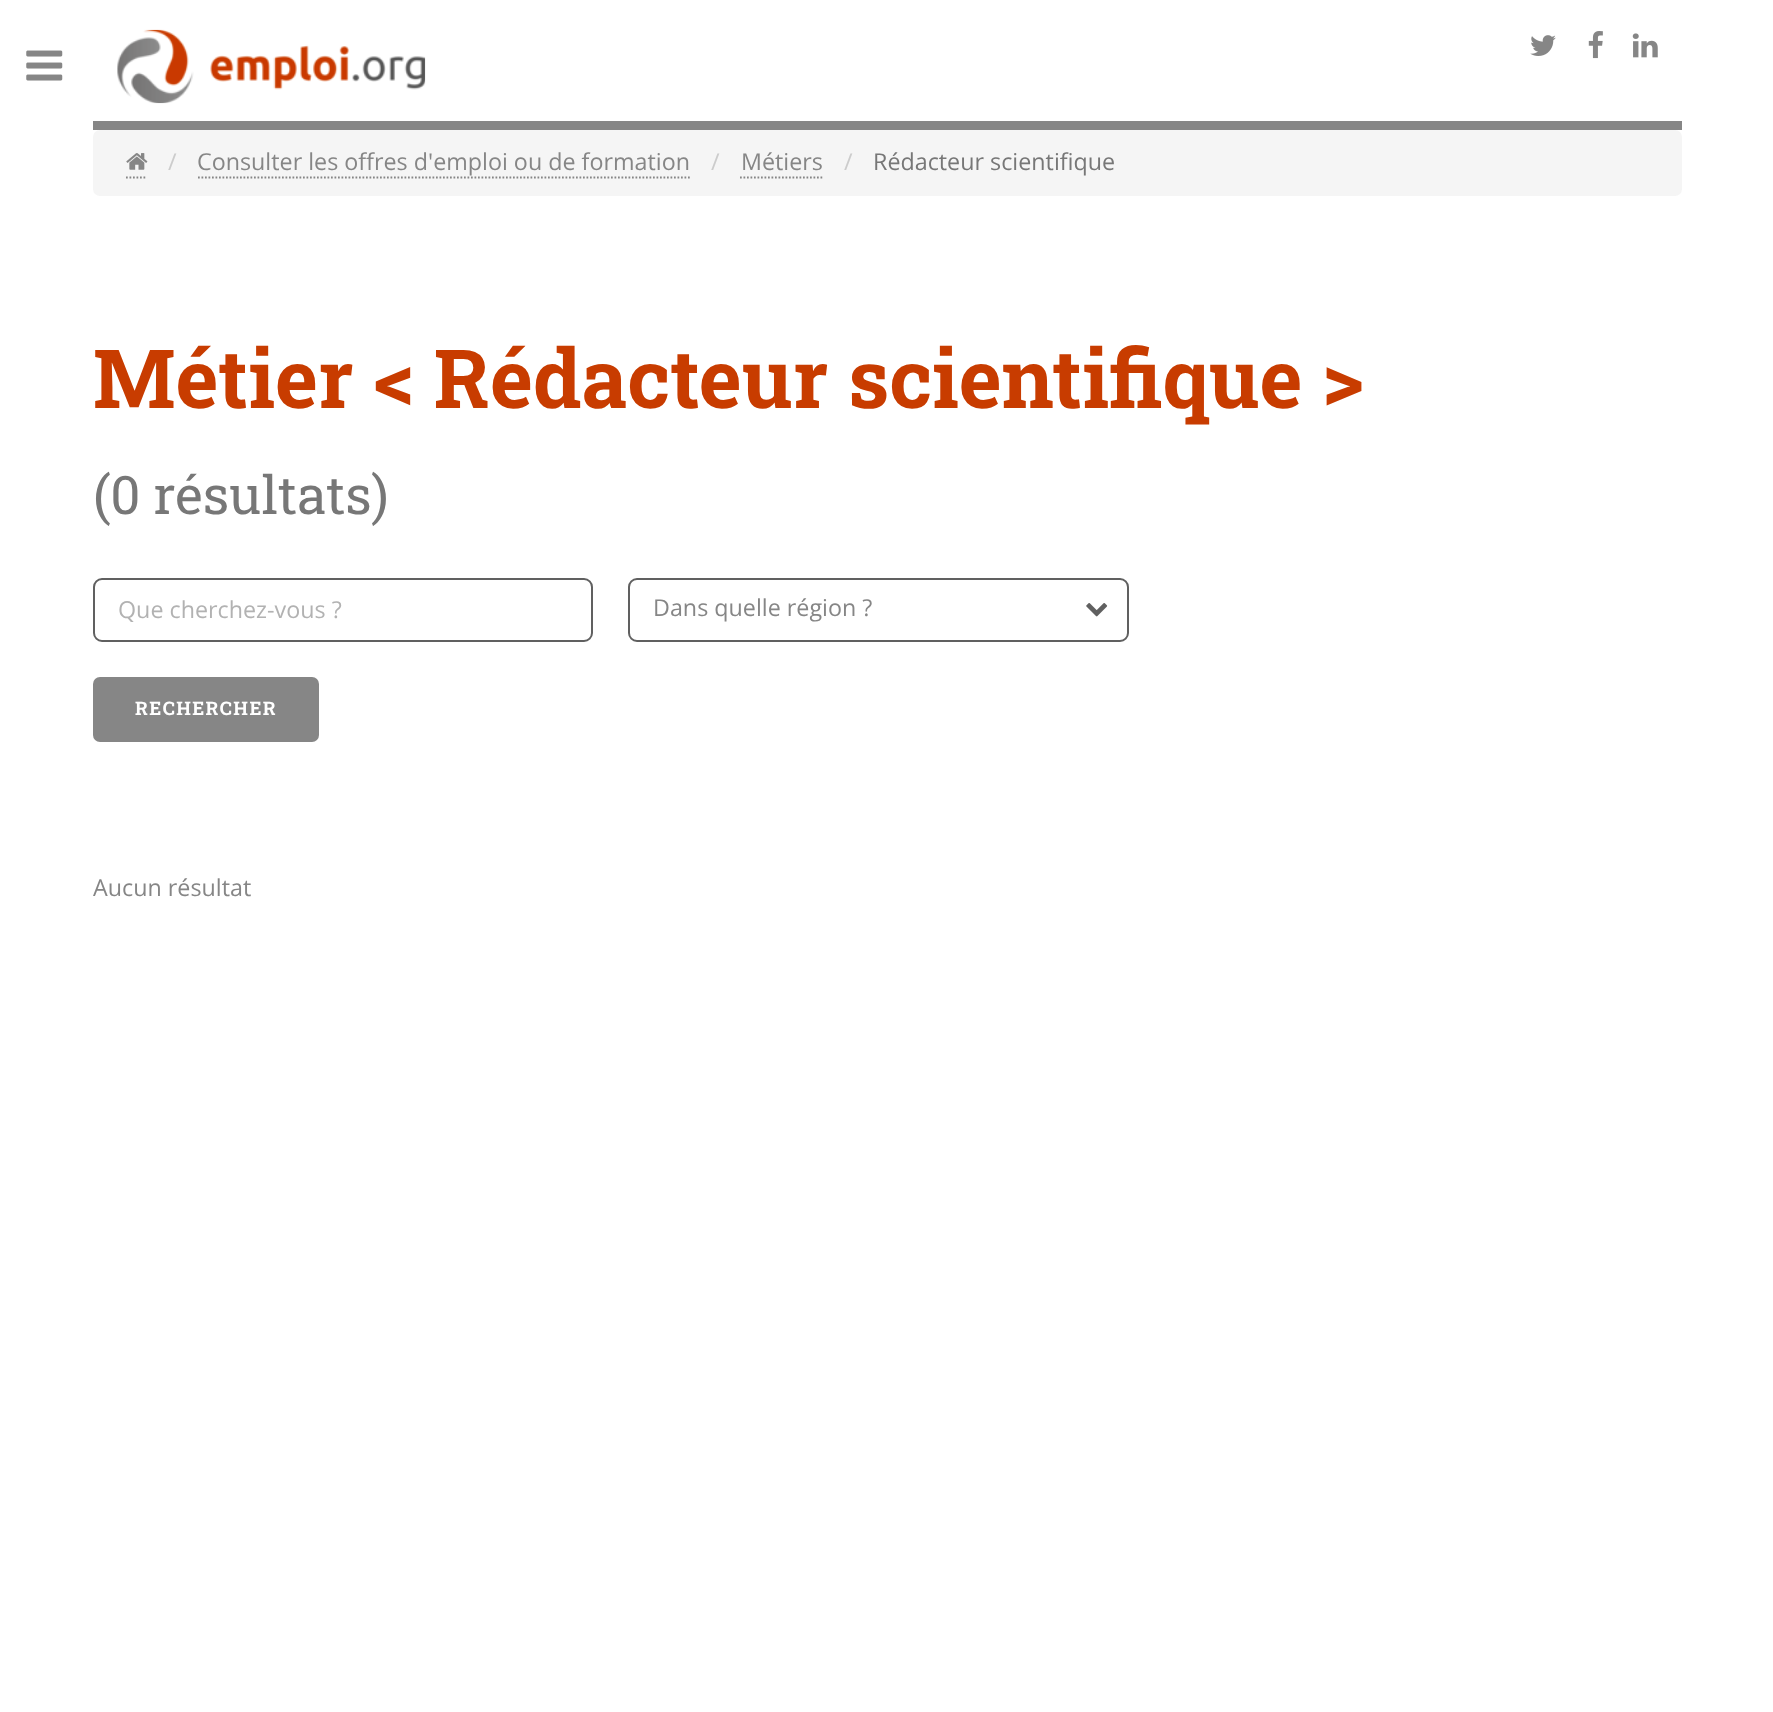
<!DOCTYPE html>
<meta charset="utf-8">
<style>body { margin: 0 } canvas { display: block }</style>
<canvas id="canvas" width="1773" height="1712"></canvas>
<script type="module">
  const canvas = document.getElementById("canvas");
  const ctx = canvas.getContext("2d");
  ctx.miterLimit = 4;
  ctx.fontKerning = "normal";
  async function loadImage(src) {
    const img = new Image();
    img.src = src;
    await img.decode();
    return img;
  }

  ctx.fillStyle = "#ffffff";
  ctx.fillRect(0, 0, 1773, 1712);
  ctx.drawImage(await loadImage("img1.png"), 26, 50, 37, 31);
  ctx.fillStyle = "#868686";
  ctx.fillRect(93, 121, 1589, 9);
  ctx.drawImage(await loadImage("img2.png"), 117, 29, 309, 75);
  ctx.drawImage(await loadImage("img3.png"), 1530, 35, 26, 21);
  ctx.drawImage(await loadImage("img4.png"), 1588, 31, 15, 28);
  ctx.drawImage(await loadImage("img5.png"), 1632, 33, 26, 25);
  ctx.fillStyle = "#f5f5f5";
  ctx.beginPath();
  ctx.roundRect(93, 130, 1589, 66, 7);
  ctx.fill();
  ctx.beginPath();
  ctx.moveTo(126, 177.5);
  ctx.lineTo(147, 177.5);
  ctx.strokeStyle = "#868686";
  ctx.lineWidth = 1.8;
  ctx.setLineDash([1.75, 1.75]);
  ctx.stroke();
  ctx.drawImage(await loadImage("img6.png"), 126, 153, 22, 17);
  ctx.font = "23.3px Open Sans";
  ctx.fillStyle = "#cccccc";
  ctx.fillText("/", 168, 170);
  ctx.fillStyle = "#868686";
  ctx.fillText("Consulter les offres d'emploi ou de formation", 197, 170);
  ctx.beginPath();
  ctx.moveTo(198, 177.5);
  ctx.lineTo(691, 177.5);
  ctx.stroke();
  ctx.fillStyle = "#cccccc";
  ctx.fillText("/", 711, 170);
  ctx.fillStyle = "#868686";
  ctx.fillText("Métiers", 741, 170);
  ctx.beginPath();
  ctx.moveTo(740, 177.5);
  ctx.lineTo(822.5, 177.5);
  ctx.stroke();
  ctx.fillStyle = "#cccccc";
  ctx.fillText("/", 844, 170);
  ctx.fillStyle = "#777777";
  ctx.fillText("Rédacteur scientifique", 873, 170);
  ctx.font = "bold 81.7px Roboto Slab";
  ctx.fillStyle = "#c83c00";
  ctx.fillText("Métier < Rédacteur scientifique >", 93, 408);
  ctx.font = "53px Roboto Slab";
  ctx.fillStyle = "#777777";
  ctx.fillText("(0 résultats)", 93, 514);
  ctx.beginPath();
  ctx.roundRect(94, 579, 498, 62, 8);
  ctx.strokeStyle = "#606060";
  ctx.lineWidth = 2;
  ctx.setLineDash([]);
  ctx.stroke();
  ctx.font = "23.3px Open Sans";
  ctx.fillStyle = "#b2b2b2";
  ctx.fillText("Que cherchez-vous ?", 118, 618);
  ctx.beginPath();
  ctx.roundRect(629, 579, 499, 62, 8);
  ctx.stroke();
  ctx.fillStyle = "#868686";
  ctx.fillText("Dans quelle région ?", 653, 616);
  ctx.drawImage(await loadImage("img7.png"), 1086, 603, 22, 14);
  ctx.beginPath();
  ctx.roundRect(93, 677, 226, 65, 7);
  ctx.fill();
  ctx.letterSpacing = "1.4px";
  ctx.font = "bold 18.75px Roboto Slab";
  ctx.fillStyle = "#ffffff";
  ctx.fillText("RECHERCHER", 135, 715);
  ctx.letterSpacing = "0px";
  ctx.font = "23.3px Open Sans";
  ctx.fillStyle = "#868686";
  ctx.fillText("Aucun résultat", 93, 896);
</script>
